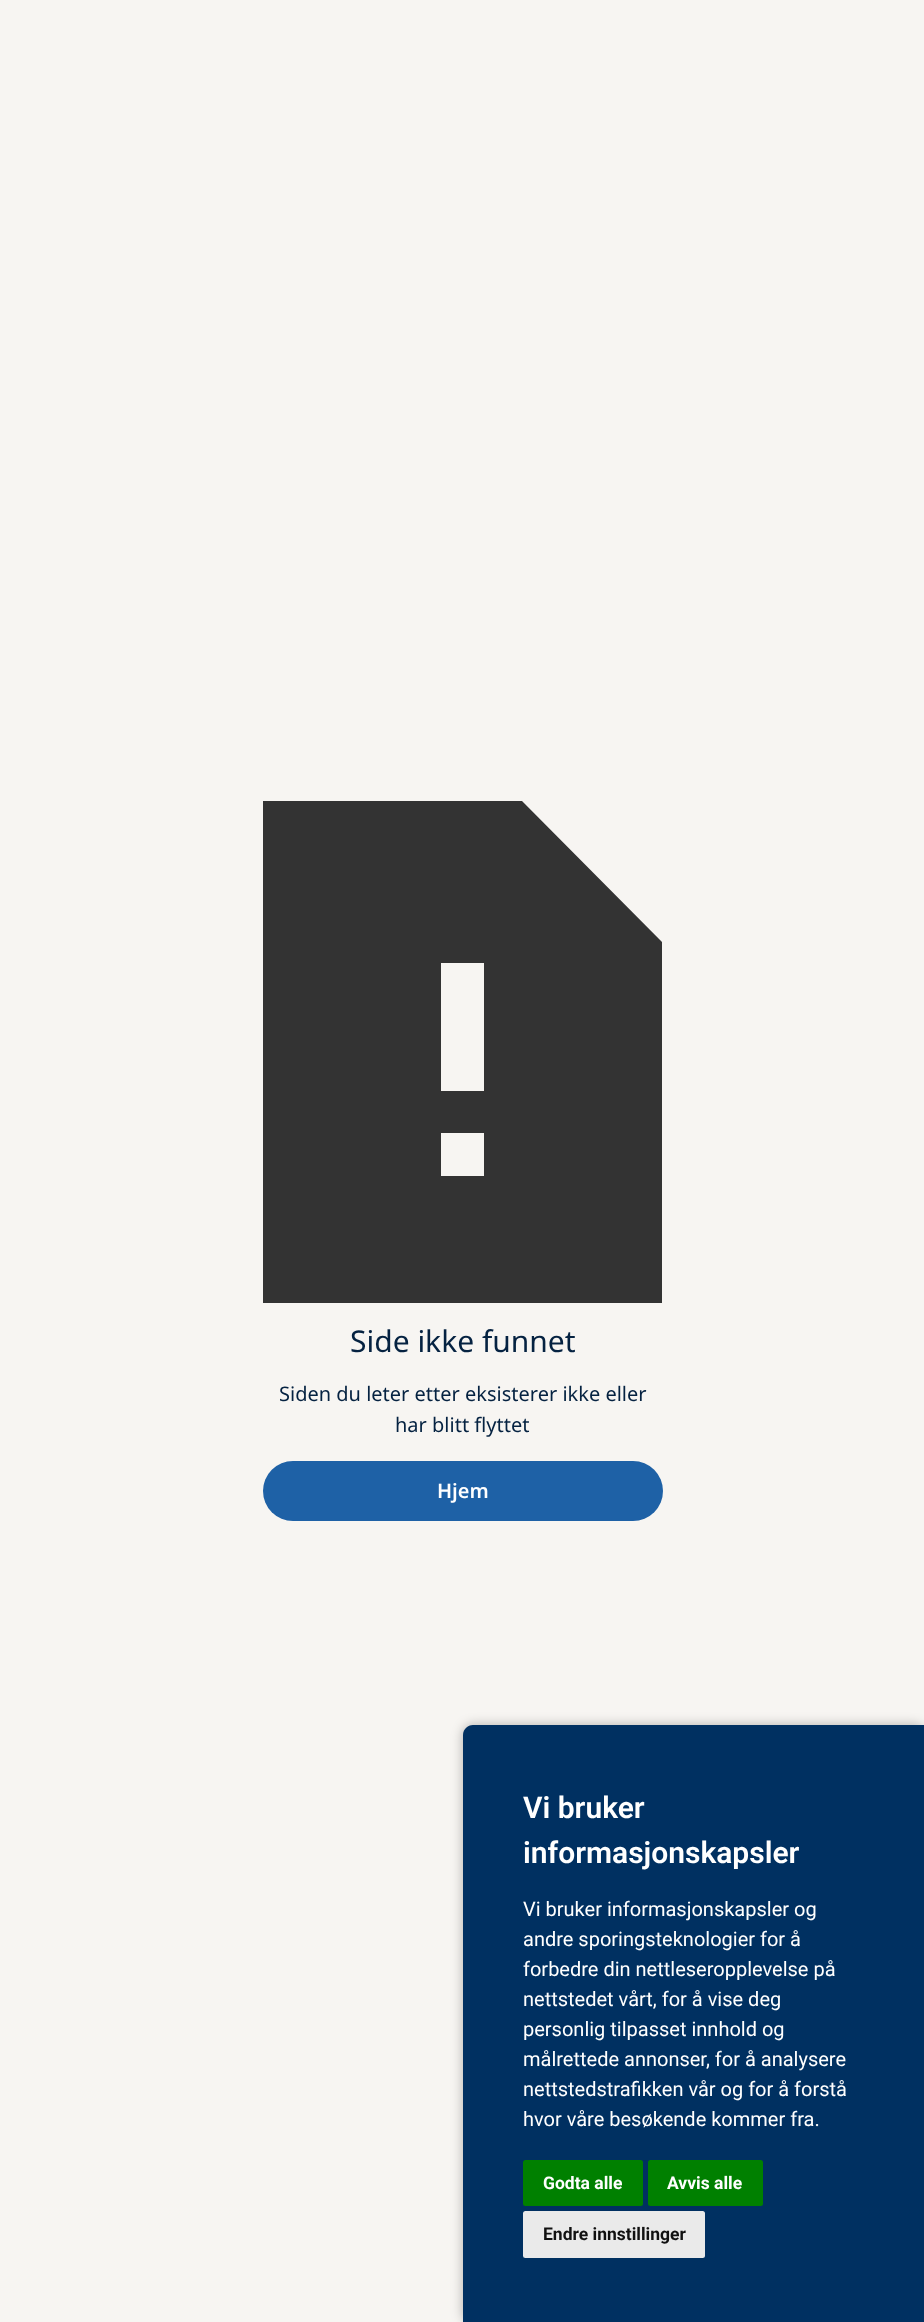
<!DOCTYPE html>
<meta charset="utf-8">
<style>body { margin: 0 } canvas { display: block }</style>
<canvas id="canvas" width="924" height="2322"></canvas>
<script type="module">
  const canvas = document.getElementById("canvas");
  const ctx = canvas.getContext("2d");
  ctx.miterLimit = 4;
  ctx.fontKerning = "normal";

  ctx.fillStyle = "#f7f5f2";
  ctx.fillRect(0, 0, 924, 2322);
  ctx.fillStyle = "#333333";
  ctx.beginPath();
  ctx.moveTo(263, 801);
  ctx.lineTo(522, 801);
  ctx.lineTo(662, 942);
  ctx.lineTo(662, 1303);
  ctx.lineTo(263, 1303);
  ctx.closePath();
  ctx.moveTo(441, 963);
  ctx.lineTo(484, 963);
  ctx.lineTo(484, 1091);
  ctx.lineTo(441, 1091);
  ctx.closePath();
  ctx.moveTo(441, 1133);
  ctx.lineTo(484, 1133);
  ctx.lineTo(484, 1176);
  ctx.lineTo(441, 1176);
  ctx.closePath();
  ctx.fill("evenodd");
  ctx.font = "30px Noto Sans";
  ctx.fillStyle = "#052241";
  ctx.fillText("Side ikke funnet", 350, 1352);
  ctx.font = "20px Noto Sans";
  ctx.fillText("Siden du leter etter eksisterer ikke eller", 279, 1401);
  ctx.fillText("har blitt flyttet", 395, 1432);
  ctx.fillStyle = "#1e61a6";
  ctx.beginPath();
  ctx.roundRect(263, 1461, 400, 60, 30);
  ctx.fill();
  ctx.font = "600 20px Noto Sans";
  ctx.fillStyle = "#ffffff";
  ctx.fillText("Hjem", 437, 1498);
  ctx.fillStyle = "rgba(0, 0, 0, 0.29)";
  ctx.filter = "blur(6px)";
  ctx.beginPath();
  ctx.roundRect(463, 1725, 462, 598, 10);
  ctx.fill();
  ctx.filter = "none";
  ctx.fillStyle = "#003061";
  ctx.beginPath();
  ctx.moveTo(473, 1725);
  ctx.lineTo(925, 1725);
  ctx.lineTo(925, 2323);
  ctx.lineTo(463, 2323);
  ctx.lineTo(463, 1735);
  ctx.bezierCurveTo(463, 1729.5, 467.5, 1725, 473, 1725);
  ctx.closePath();
  ctx.fill();
  ctx.font = "600 30px Roboto";
  ctx.fillStyle = "#ffffff";
  ctx.fillText("Vi bruker", 523, 1818);
  ctx.fillText("informasjonskapsler", 523, 1863);
  ctx.font = "20px Roboto";
  ctx.fillText("Vi bruker informasjonskapsler og", 523, 1916);
  ctx.fillText("andre sporingsteknologier for å", 523, 1946);
  ctx.fillText("forbedre din nettleseropplevelse på", 523, 1976);
  ctx.fillText("nettstedet vårt, for å vise deg", 523, 2006);
  ctx.fillText("personlig tilpasset innhold og", 523, 2036);
  ctx.fillText("målrettede annonser, for å analysere", 523, 2066);
  ctx.fillText("nettstedstrafikken vår og for å forstå", 523, 2096);
  ctx.fillText("hvor våre besøkende kommer fra.", 523, 2126);
  ctx.fillStyle = "#008000";
  ctx.beginPath();
  ctx.roundRect(523, 2160, 120, 46, 2.5);
  ctx.fill();
  ctx.font = "bold 17.5px Roboto";
  ctx.fillStyle = "#ffffff";
  ctx.fillText("Godta alle", 543, 2189);
  ctx.fillStyle = "#008000";
  ctx.beginPath();
  ctx.roundRect(648, 2160, 115, 46, 2.5);
  ctx.fill();
  ctx.fillStyle = "#ffffff";
  ctx.fillText("Avvis alle", 667, 2189);
  ctx.fillStyle = "#eaeaea";
  ctx.beginPath();
  ctx.roundRect(523, 2211, 182, 47, 2.5);
  ctx.fill();
  ctx.fillStyle = "#111111";
  ctx.fillText("Endre innstillinger", 543, 2240);
</script>
